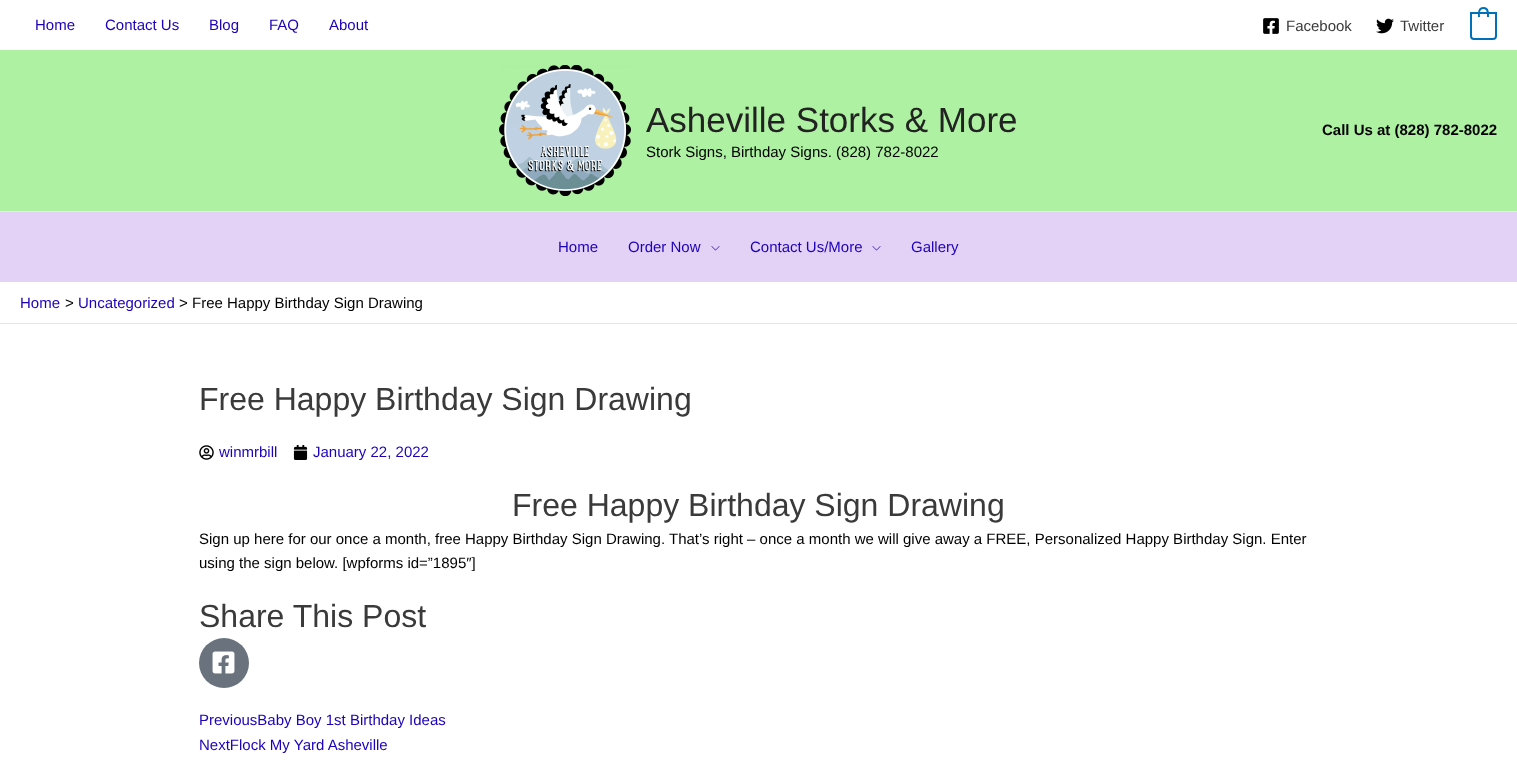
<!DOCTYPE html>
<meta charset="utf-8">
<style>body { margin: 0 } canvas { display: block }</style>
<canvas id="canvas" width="1517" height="760"></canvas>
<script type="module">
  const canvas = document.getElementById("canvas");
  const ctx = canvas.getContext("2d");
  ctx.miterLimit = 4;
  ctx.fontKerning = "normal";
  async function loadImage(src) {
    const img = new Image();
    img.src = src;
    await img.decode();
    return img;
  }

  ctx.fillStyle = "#ffffff";
  ctx.fillRect(0, 0, 1517, 760);
  ctx.font = "15px Liberation Sans";
  ctx.fillStyle = "#1c02ba";
  ctx.fillText("Home", 35, 30);
  ctx.fillText("Contact Us", 105, 30);
  ctx.fillText("Blog", 209, 30);
  ctx.fillText("FAQ", 269, 30);
  ctx.fillText("About", 329, 30);
  ctx.drawImage(await loadImage("img1.png"), 1263, 18, 16, 16);
  ctx.fillStyle = "#3a3a3a";
  ctx.fillText("Facebook", 1286, 31);
  ctx.drawImage(await loadImage("img2.png"), 1376, 18, 18, 16);
  ctx.fillText("Twitter", 1400, 31);
  ctx.beginPath();
  ctx.roundRect(1471, 13, 25, 26, [0, 0, 3, 3]);
  ctx.strokeStyle = "#0170b9";
  ctx.lineWidth = 2;
  ctx.stroke();
  ctx.fillStyle = "#0170b9";
  ctx.beginPath();
  ctx.moveTo(1483.5, 7);
  ctx.bezierCurveTo(1489.5, 7, 1489, 13, 1489, 17);
  ctx.lineTo(1478, 17);
  ctx.bezierCurveTo(1478, 13, 1477.5, 7, 1483.5, 7);
  ctx.closePath();
  ctx.moveTo(1483.5, 9);
  ctx.bezierCurveTo(1487.5, 9, 1487, 14, 1487, 17);
  ctx.lineTo(1480, 17);
  ctx.bezierCurveTo(1480, 14, 1479, 9, 1483.5, 9);
  ctx.closePath();
  ctx.fill("evenodd");
  ctx.fillStyle = "#aef1a2";
  ctx.fillRect(0, 50, 1517, 161);
  ctx.fillStyle = "#eaeaea";
  ctx.fillRect(0, 211, 1517, 1);
  ctx.drawImage(await loadImage("img3.png"), 499, 65, 132, 131);
  ctx.font = "35px Liberation Sans";
  ctx.fillStyle = "#222222";
  ctx.fillText("Asheville Storks & More", 646, 132);
  ctx.font = "15px Liberation Sans";
  ctx.fillStyle = "#000000";
  ctx.fillText("Stork Signs, Birthday Signs. (828) 782-8022", 646, 157);
  ctx.font = "bold 15px Liberation Sans";
  ctx.fillText("Call Us at (828) 782-8022", 1322, 135);
  ctx.fillStyle = "#e4d1f6";
  ctx.fillRect(0, 212, 1517, 70);
  ctx.font = "15px Liberation Sans";
  ctx.fillStyle = "#1c02ba";
  ctx.fillText("Home", 558, 252);
  ctx.fillText("Order Now", 628, 252);
  ctx.drawImage(await loadImage("img4.png"), 711, 246, 9, 5);
  ctx.fillText("Contact Us/More", 750, 252);
  ctx.drawImage(await loadImage("img4.png"), 872, 246, 9, 5);
  ctx.fillText("Gallery", 911, 252);
  ctx.fillStyle = "#e5e5e5";
  ctx.fillRect(0, 323, 1517, 1);
  ctx.fillStyle = "#1c02ba";
  ctx.fillText("Home", 20, 308);
  ctx.fillStyle = "#000000";
  ctx.fillText(">", 65, 308);
  ctx.fillStyle = "#1c02ba";
  ctx.fillText("Uncategorized", 78, 308);
  ctx.fillStyle = "#000000";
  ctx.fillText(">", 179, 308);
  ctx.fillText("Free Happy Birthday Sign Drawing", 192, 308);
  ctx.font = "32px Liberation Sans";
  ctx.fillStyle = "#3a3a3a";
  ctx.fillText("Free Happy Birthday Sign Drawing", 199, 410);
  ctx.drawImage(await loadImage("img5.png"), 199, 445, 15, 15);
  ctx.font = "15px Liberation Sans";
  ctx.fillStyle = "#1c02ba";
  ctx.fillText("winmrbill", 219, 457);
  ctx.drawImage(await loadImage("img6.png"), 293, 445, 15, 15);
  ctx.fillText("January 22, 2022", 313, 457);
  ctx.font = "32px Liberation Sans";
  ctx.fillStyle = "#3a3a3a";
  ctx.fillText("Free Happy Birthday Sign Drawing", 512, 516);
  ctx.font = "15px Liberation Sans";
  ctx.fillStyle = "#000000";
  ctx.fillText("Sign up here for our once a month, free Happy Birthday Sign Drawing. That’s right – once a month we will give away a FREE, Personalized Happy Birthday Sign. Enter", 199, 544);
  ctx.fillText("using the sign below. [wpforms id=”1895″]", 199, 568);
  ctx.font = "32px Liberation Sans";
  ctx.fillStyle = "#3a3a3a";
  ctx.fillText("Share This Post", 199, 627);
  ctx.fillStyle = "#69727d";
  ctx.beginPath();
  ctx.arc(224, 663, 25, 0, Math.PI * 2);
  ctx.fill();
  ctx.drawImage(await loadImage("img7.png"), 212, 651, 23, 23);
  ctx.font = "15px Liberation Sans";
  ctx.fillStyle = "#1c02ba";
  ctx.fillText("PreviousBaby Boy 1st Birthday Ideas", 199, 725);
  ctx.fillText("NextFlock My Yard Asheville", 199, 750);
</script>
